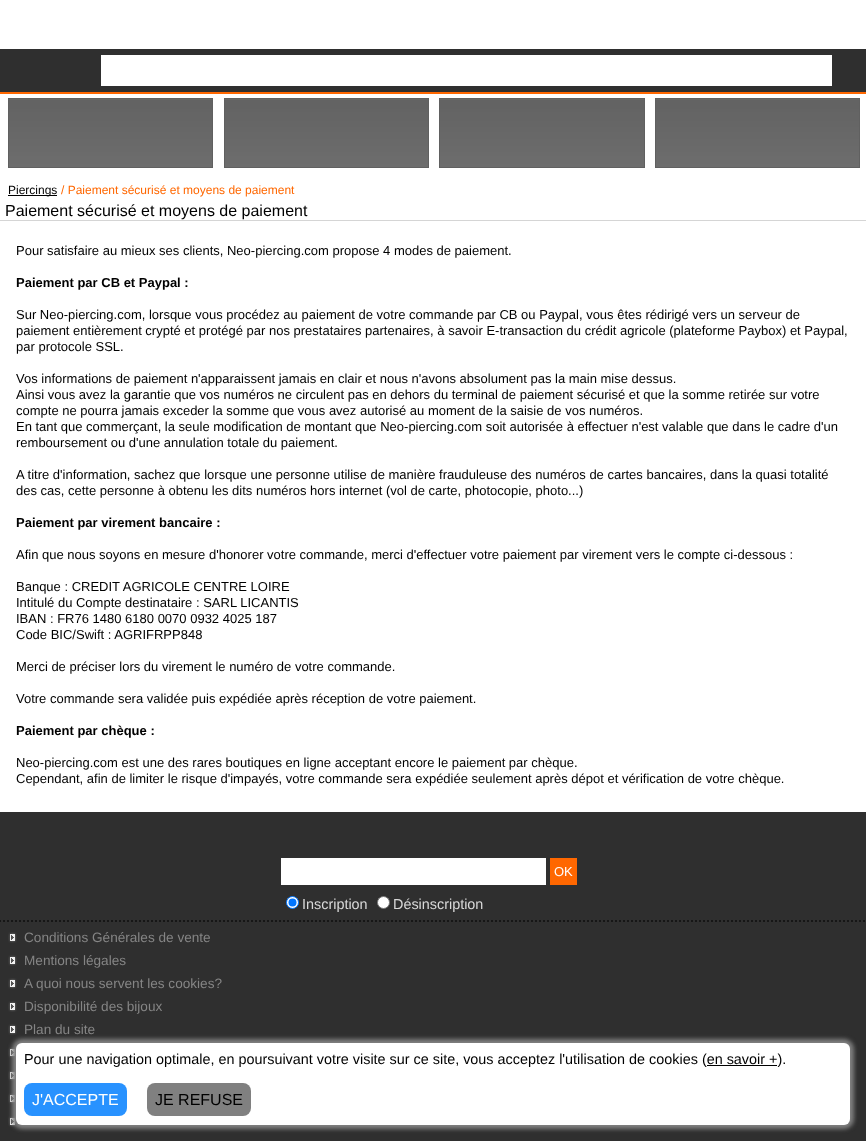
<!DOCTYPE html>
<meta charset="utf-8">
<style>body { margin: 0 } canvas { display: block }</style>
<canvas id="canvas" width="866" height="1141"></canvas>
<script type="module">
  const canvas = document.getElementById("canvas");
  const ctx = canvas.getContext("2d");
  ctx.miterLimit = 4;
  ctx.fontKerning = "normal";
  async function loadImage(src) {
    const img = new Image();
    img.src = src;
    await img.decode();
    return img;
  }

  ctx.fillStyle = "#ffffff";
  ctx.fillRect(0, 0, 866, 1141);
  ctx.fillStyle = "#2f2f2f";
  ctx.fillRect(0, 49, 866, 43);
  ctx.fillStyle = "#ff6700";
  ctx.fillRect(0, 92, 866, 2);
  ctx.fillStyle = "#ffffff";
  ctx.fillRect(101, 55, 731, 31);
  ctx.drawImage(await loadImage("img1.png"), 9, 99, 203, 68);
  ctx.strokeStyle = "#606060";
  ctx.strokeRect(8.5, 98.5, 204, 69);
  ctx.drawImage(await loadImage("img1.png"), 225, 99, 203, 68);
  ctx.strokeRect(224.5, 98.5, 204, 69);
  ctx.drawImage(await loadImage("img2.png"), 440, 99, 204, 68);
  ctx.strokeRect(439.5, 98.5, 205, 69);
  ctx.drawImage(await loadImage("img1.png"), 656, 99, 203, 68);
  ctx.strokeRect(655.5, 98.5, 204, 69);
  ctx.fillStyle = "#000000";
  ctx.fillRect(8, 195, 49, 1);
  ctx.font = "12px Liberation Sans";
  ctx.fillText("Piercings", 8, 194);
  ctx.fillStyle = "#ff6700";
  ctx.fillText("/ Paiement sécurisé et moyens de paiement", 61, 194);
  ctx.fillStyle = "#d5d5d5";
  ctx.fillRect(0, 220, 866, 1);
  ctx.font = "16px Liberation Sans";
  ctx.fillStyle = "#000000";
  ctx.fillText("Paiement sécurisé et moyens de paiement", 5, 216);
  ctx.font = "13px Liberation Sans";
  ctx.fillText("Pour satisfaire au mieux ses clients, Neo-piercing.com propose 4 modes de paiement.", 16, 255);
  ctx.font = "bold 13px Liberation Sans";
  ctx.fillText("Paiement par CB et Paypal :", 16, 287);
  ctx.font = "13px Liberation Sans";
  ctx.fillText("Sur Neo-piercing.com, lorsque vous procédez au paiement de votre commande par CB ou Paypal, vous êtes rédirigé vers un serveur de", 16, 319);
  ctx.fillText("paiement entièrement crypté et protégé par nos prestataires partenaires, à savoir E-transaction du crédit agricole (plateforme Paybox) et Paypal,", 16, 335);
  ctx.fillText("par protocole SSL.", 16, 351);
  ctx.fillText("Vos informations de paiement n'apparaissent jamais en clair et nous n'avons absolument pas la main mise dessus.", 16, 383);
  ctx.fillText("Ainsi vous avez la garantie que vos numéros ne circulent pas en dehors du terminal de paiement sécurisé et que la somme retirée sur votre", 16, 399);
  ctx.fillText("compte ne pourra jamais exceder la somme que vous avez autorisé au moment de la saisie de vos numéros.", 16, 415);
  ctx.fillText("En tant que commerçant, la seule modification de montant que Neo-piercing.com soit autorisée à effectuer n'est valable que dans le cadre d'un", 16, 431);
  ctx.fillText("remboursement ou d'une annulation totale du paiement.", 16, 447);
  ctx.fillText("A titre d'information, sachez que lorsque une personne utilise de manière frauduleuse des numéros de cartes bancaires, dans la quasi totalité", 16, 479);
  ctx.fillText("des cas, cette personne à obtenu les dits numéros hors internet (vol de carte, photocopie, photo...)", 16, 495);
  ctx.font = "bold 13px Liberation Sans";
  ctx.fillText("Paiement par virement bancaire :", 16, 527);
  ctx.font = "13px Liberation Sans";
  ctx.fillText("Afin que nous soyons en mesure d'honorer votre commande, merci d'effectuer votre paiement par virement vers le compte ci-dessous :", 16, 559);
  ctx.fillText("Banque : CREDIT AGRICOLE CENTRE LOIRE", 16, 591);
  ctx.fillText("Intitulé du Compte destinataire : SARL LICANTIS", 16, 607);
  ctx.fillText("IBAN : FR76 1480 6180 0070 0932 4025 187", 16, 623);
  ctx.fillText("Code BIC/Swift : AGRIFRPP848", 16, 639);
  ctx.fillText("Merci de préciser lors du virement le numéro de votre commande.", 16, 671);
  ctx.fillText("Votre commande sera validée puis expédiée après réception de votre paiement.", 16, 703);
  ctx.font = "bold 13px Liberation Sans";
  ctx.fillText("Paiement par chèque :", 16, 735);
  ctx.font = "13px Liberation Sans";
  ctx.fillText("Neo-piercing.com est une des rares boutiques en ligne acceptant encore le paiement par chèque.", 16, 767);
  ctx.fillText("Cependant, afin de limiter le risque d'impayés, votre commande sera expédiée seulement après dépot et vérification de votre chèque.", 16, 783);
  ctx.fillStyle = "#2f2f2f";
  ctx.fillRect(0, 812, 866, 329);
  ctx.fillStyle = "#ffffff";
  ctx.fillRect(281, 858, 265, 27);
  ctx.fillStyle = "#ff6700";
  ctx.fillRect(550, 858, 27, 27);
  ctx.fillStyle = "#ffffff";
  ctx.fillText("OK", 554, 876);
  ctx.beginPath();
  ctx.arc(292.5, 902.5, 6, 0, Math.PI * 2);
  ctx.fill();
  ctx.strokeStyle = "#0075ff";
  ctx.stroke();
  ctx.fillStyle = "#0075ff";
  ctx.beginPath();
  ctx.arc(292.5, 902.5, 4, 0, Math.PI * 2);
  ctx.fill();
  ctx.font = "14.4px Liberation Sans";
  ctx.fillStyle = "#d9d9d9";
  ctx.fillText("Inscription", 302, 909);
  ctx.fillStyle = "#ffffff";
  ctx.beginPath();
  ctx.arc(383.5, 902.5, 6, 0, Math.PI * 2);
  ctx.fill();
  ctx.strokeStyle = "#767676";
  ctx.stroke();
  ctx.fillStyle = "#d9d9d9";
  ctx.fillText("Désinscription", 393, 909);
  ctx.drawImage(await loadImage("img3.png"), 0, 920, 865, 2);
  ctx.drawImage(await loadImage("img4.png"), 8, 932, 9, 11);
  ctx.font = "13.6px Liberation Sans";
  ctx.fillStyle = "#858585";
  ctx.fillText("Conditions Générales de vente", 24, 942);
  ctx.drawImage(await loadImage("img4.png"), 8, 955, 9, 11);
  ctx.fillText("Mentions légales", 24, 965);
  ctx.drawImage(await loadImage("img4.png"), 8, 978, 9, 11);
  ctx.fillText("A quoi nous servent les cookies?", 24, 988);
  ctx.drawImage(await loadImage("img4.png"), 8, 1001, 9, 11);
  ctx.fillText("Disponibilité des bijoux", 24, 1011);
  ctx.drawImage(await loadImage("img4.png"), 8, 1024, 9, 11);
  ctx.fillText("Plan du site", 24, 1034);
  ctx.drawImage(await loadImage("img4.png"), 8, 1047, 9, 11);
  ctx.drawImage(await loadImage("img5.png"), 8, 1070, 8, 11);
  ctx.drawImage(await loadImage("img5.png"), 8, 1093, 8, 11);
  ctx.drawImage(await loadImage("img4.png"), 8, 1116, 9, 11);
  ctx.fillStyle = "#808080";
  ctx.filter = "blur(2px)";
  ctx.beginPath();
  ctx.roundRect(12, 1039, 842, 90, 10);
  ctx.fill();
  ctx.filter = "none";
  ctx.fillStyle = "#ffffff";
  ctx.beginPath();
  ctx.roundRect(16, 1043, 834, 82, 6);
  ctx.fill();
  ctx.font = "14.4px Liberation Sans";
  ctx.fillStyle = "#000000";
  ctx.fillText("Pour une navigation optimale, en poursuivant votre visite sur ce site, vous acceptez l'utilisation de cookies (en savoir +).", 24, 1064);
  ctx.fillRect(707, 1065, 70, 1);
  ctx.fillStyle = "#2892ff";
  ctx.beginPath();
  ctx.roundRect(24, 1083, 103, 33, 8);
  ctx.fill();
  ctx.font = "16px Liberation Sans";
  ctx.fillStyle = "#ffffff";
  ctx.fillText("J'ACCEPTE", 32, 1105);
  ctx.fillStyle = "#808080";
  ctx.beginPath();
  ctx.roundRect(147, 1083, 104, 33, 8);
  ctx.fill();
  ctx.fillStyle = "#000000";
  ctx.fillText("JE REFUSE", 155, 1105);
</script>
